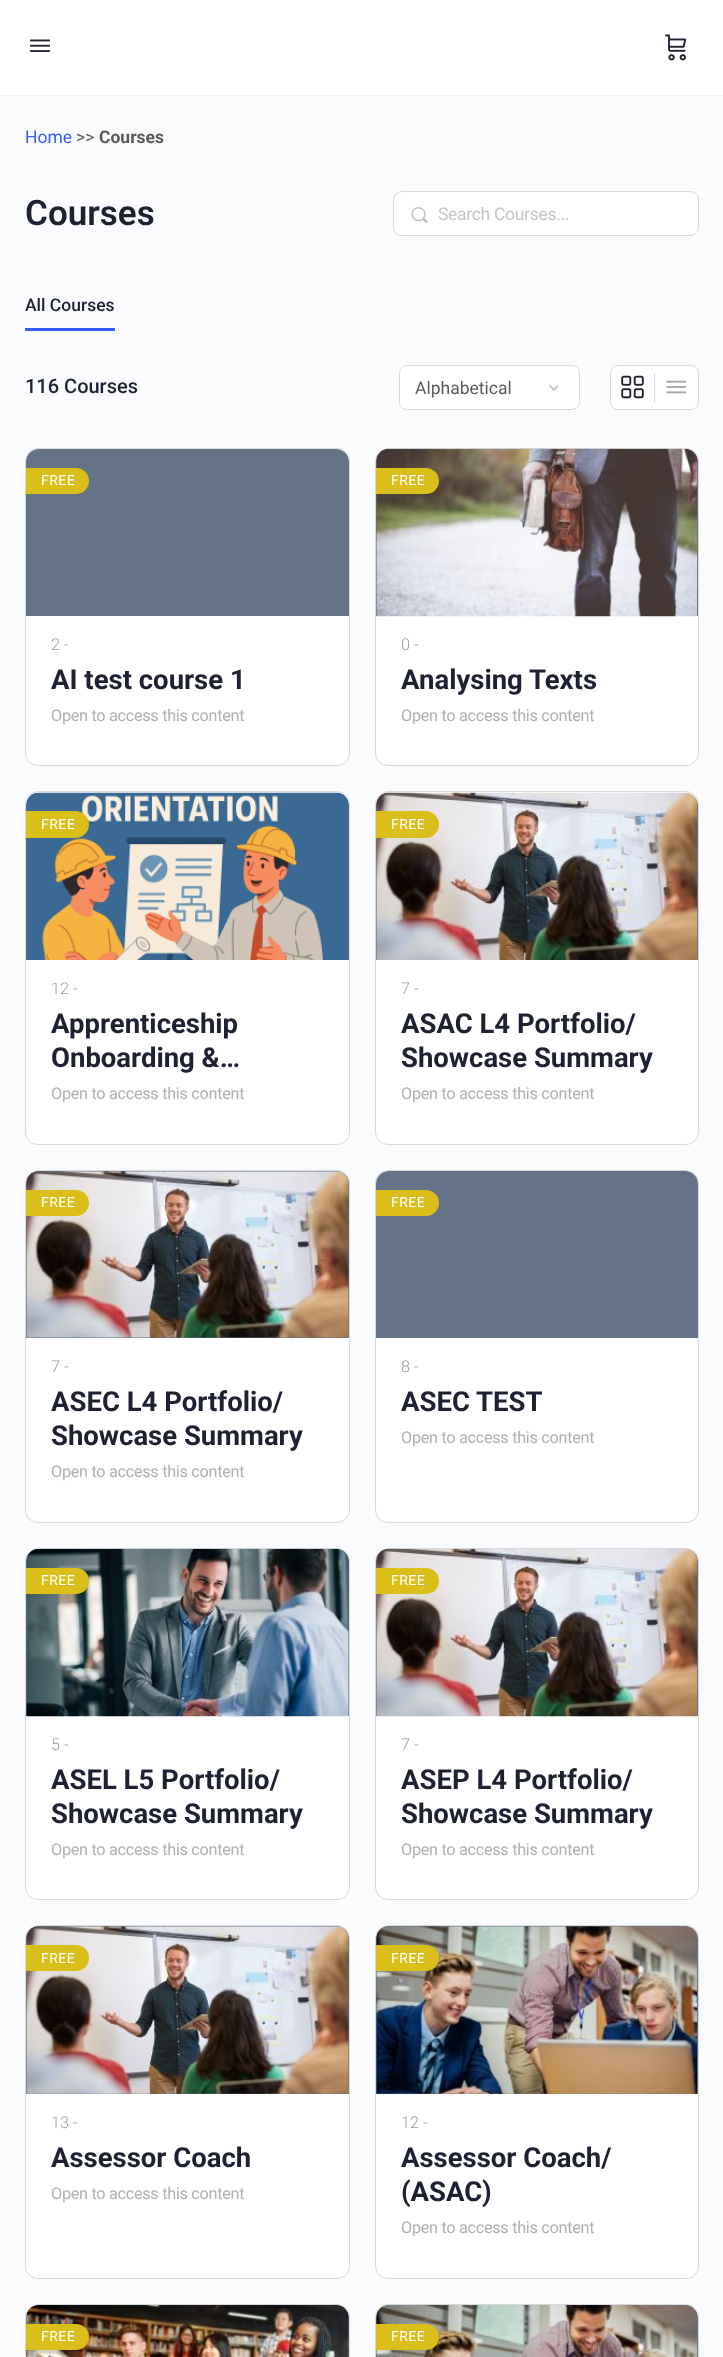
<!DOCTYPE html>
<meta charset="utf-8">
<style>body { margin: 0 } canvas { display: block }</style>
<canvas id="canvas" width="723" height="2357"></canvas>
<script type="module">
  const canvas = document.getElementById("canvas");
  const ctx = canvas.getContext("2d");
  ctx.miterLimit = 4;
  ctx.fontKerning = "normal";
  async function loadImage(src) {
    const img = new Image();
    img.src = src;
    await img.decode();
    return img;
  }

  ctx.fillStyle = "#fafbfd";
  ctx.fillRect(0, 0, 723, 2357);
  ctx.fillStyle = "#f2f3f6";
  ctx.beginPath();
  ctx.moveTo(0, 95);
  ctx.lineTo(0, 96);
  ctx.lineTo(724, 96);
  ctx.lineTo(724, 1);
  ctx.lineTo(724, 95);
  ctx.closePath();
  ctx.fill();
  ctx.fillStyle = "#ffffff";
  ctx.fillRect(0, 0, 723, 95);
  ctx.drawImage(await loadImage("img1.png"), 30, 39, 20, 13);
  ctx.drawImage(await loadImage("img2.png"), 665, 34, 22, 27);
  ctx.font = "17.5px Roboto";
  ctx.fillStyle = "#385dff";
  ctx.fillText("Home", 25, 143);
  ctx.fillStyle = "#5a5a5a";
  ctx.fillText(">>", 76, 143);
  ctx.font = "bold 17.5px Roboto";
  ctx.fillText("Courses", 99, 143);
  ctx.font = "600 35px Roboto";
  ctx.fillStyle = "#1e2132";
  ctx.fillText("Courses", 25, 225);
  ctx.fillStyle = "#ffffff";
  ctx.beginPath();
  ctx.roundRect(393.5, 191.5, 305, 44, 8.5);
  ctx.fill();
  ctx.strokeStyle = "#d6d9dd";
  ctx.stroke();
  ctx.drawImage(await loadImage("img3.png"), 411, 207, 17, 16);
  ctx.letterSpacing = "-0.3px";
  ctx.font = "17.5px Roboto";
  ctx.fillStyle = "#c3c6c9";
  ctx.fillText("Search Courses...", 438, 220);
  ctx.letterSpacing = "0px";
  ctx.font = "500 17.5px Roboto";
  ctx.fillStyle = "#1e2132";
  ctx.fillText("All Courses", 25, 311);
  ctx.fillStyle = "#385dff";
  ctx.fillRect(25, 328, 90, 3);
  ctx.font = "500 20px Roboto";
  ctx.fillStyle = "#1e2132";
  ctx.fillText("116 Courses", 25, 393);
  ctx.fillStyle = "#ffffff";
  ctx.beginPath();
  ctx.roundRect(399, 365, 181, 45, 8);
  ctx.fill();
  ctx.beginPath();
  ctx.moveTo(557.5, 386);
  ctx.lineTo(554, 390);
  ctx.lineTo(550, 386);
  ctx.strokeStyle = "#c4cad1";
  ctx.lineWidth = 1.9;
  ctx.lineCap = "round";
  ctx.lineJoin = "round";
  ctx.stroke();
  ctx.beginPath();
  ctx.roundRect(399.5, 365.5, 180, 44, 7.5);
  ctx.strokeStyle = "#d6d9dd";
  ctx.lineWidth = 1;
  ctx.lineJoin = "miter";
  ctx.stroke();
  ctx.font = "17.5px Roboto";
  ctx.fillStyle = "#5a5a5a";
  ctx.fillText("Alphabetical", 415, 394);
  ctx.fillStyle = "#ffffff";
  ctx.beginPath();
  ctx.roundRect(610.5, 365.5, 88, 44, 7.5);
  ctx.fill();
  ctx.stroke();
  ctx.fillStyle = "#d6d9dd";
  ctx.fillRect(654, 373, 1, 30);
  ctx.drawImage(await loadImage("img4.png"), 621, 375, 23, 24);
  ctx.drawImage(await loadImage("img5.png"), 666, 380, 21, 14);
  ctx.fillStyle = "#ffffff";
  ctx.beginPath();
  ctx.roundRect(25.5, 448.5, 324, 317, 12.5);
  ctx.fill();
  ctx.stroke();
  ctx.save();
  ctx.beginPath();
  ctx.roundRect(26, 449, 323, 316, 11);
  ctx.clip();
  ctx.fillStyle = "#647385";
  ctx.beginPath();
  ctx.roundRect(26, 449, 323, 167, [13, 13, 0, 0]);
  ctx.fill();
  ctx.restore();
  ctx.fillStyle = "#dbbe1a";
  ctx.beginPath();
  ctx.roundRect(26, 468, 63, 26, [0, 13, 13, 0]);
  ctx.fill();
  ctx.letterSpacing = "0.5px";
  ctx.font = "14px Roboto";
  ctx.fillStyle = "#ffffff";
  ctx.fillText("FREE", 41, 485);
  ctx.letterSpacing = "0px";
  ctx.font = "300 16.25px Roboto";
  ctx.fillStyle = "#9b9c9f";
  ctx.fillText("2 -", 51, 650);
  ctx.font = "bold 27.5px Roboto";
  ctx.fillStyle = "#1e2132";
  ctx.fillText("AI test course 1", 51, 689);
  ctx.letterSpacing = "-0.3px";
  ctx.font = "16.25px Roboto";
  ctx.fillStyle = "#afb0b2";
  ctx.fillText("Open to access this content", 51, 721);
  ctx.fillStyle = "#ffffff";
  ctx.beginPath();
  ctx.roundRect(375.5, 448.5, 323, 317, 12.5);
  ctx.fill();
  ctx.stroke();
  ctx.save();
  ctx.beginPath();
  ctx.roundRect(376, 449, 322, 316, 11);
  ctx.clip();
  ctx.fillStyle = "#647385";
  ctx.beginPath();
  ctx.roundRect(376, 449, 322, 167, [13, 13, 0, 0]);
  ctx.fill();
  ctx.restore();
  ctx.drawImage(await loadImage("img6.png"), 376, 448, 322, 169);
  ctx.fillStyle = "#dbbe1a";
  ctx.beginPath();
  ctx.roundRect(376, 468, 63, 26, [0, 13, 13, 0]);
  ctx.fill();
  ctx.letterSpacing = "0.5px";
  ctx.font = "14px Roboto";
  ctx.fillStyle = "#ffffff";
  ctx.fillText("FREE", 391, 485);
  ctx.letterSpacing = "0px";
  ctx.font = "300 16.25px Roboto";
  ctx.fillStyle = "#9b9c9f";
  ctx.fillText("0 -", 401, 650);
  ctx.font = "bold 27.5px Roboto";
  ctx.fillStyle = "#1e2132";
  ctx.fillText("Analysing Texts", 401, 689);
  ctx.letterSpacing = "-0.3px";
  ctx.font = "16.25px Roboto";
  ctx.fillStyle = "#afb0b2";
  ctx.fillText("Open to access this content", 401, 721);
  ctx.fillStyle = "#ffffff";
  ctx.beginPath();
  ctx.roundRect(25.5, 791.5, 324, 353, 12.5);
  ctx.fill();
  ctx.stroke();
  ctx.save();
  ctx.beginPath();
  ctx.roundRect(26, 793, 323, 351, 11);
  ctx.clip();
  ctx.fillStyle = "#647385";
  ctx.beginPath();
  ctx.roundRect(26, 793, 323, 167, [13, 13, 0, 0]);
  ctx.fill();
  ctx.restore();
  ctx.drawImage(await loadImage("img7.png"), 26, 792, 323, 168);
  ctx.fillStyle = "#dbbe1a";
  ctx.beginPath();
  ctx.roundRect(26, 811, 63, 27, [0, 13.5, 13.5, 0]);
  ctx.fill();
  ctx.letterSpacing = "0.5px";
  ctx.font = "14px Roboto";
  ctx.fillStyle = "#ffffff";
  ctx.fillText("FREE", 41, 829);
  ctx.letterSpacing = "0px";
  ctx.font = "300 16.25px Roboto";
  ctx.fillStyle = "#9b9c9f";
  ctx.fillText("12 -", 51, 994);
  ctx.font = "bold 27.5px Roboto";
  ctx.fillStyle = "#1e2132";
  ctx.fillText("Apprenticeship", 51, 1033);
  ctx.fillText("Onboarding &…", 51, 1067);
  ctx.letterSpacing = "-0.3px";
  ctx.font = "16.25px Roboto";
  ctx.fillStyle = "#afb0b2";
  ctx.fillText("Open to access this content", 51, 1099);
  ctx.fillStyle = "#ffffff";
  ctx.beginPath();
  ctx.roundRect(375.5, 791.5, 323, 353, 12.5);
  ctx.fill();
  ctx.stroke();
  ctx.save();
  ctx.beginPath();
  ctx.roundRect(376, 793, 322, 351, 11);
  ctx.clip();
  ctx.fillStyle = "#647385";
  ctx.beginPath();
  ctx.roundRect(376, 793, 322, 167, [13, 13, 0, 0]);
  ctx.fill();
  ctx.restore();
  ctx.drawImage(await loadImage("img8.png"), 376, 792, 322, 168);
  ctx.fillStyle = "#dbbe1a";
  ctx.beginPath();
  ctx.roundRect(376, 811, 63, 27, [0, 13.5, 13.5, 0]);
  ctx.fill();
  ctx.letterSpacing = "0.5px";
  ctx.font = "14px Roboto";
  ctx.fillStyle = "#ffffff";
  ctx.fillText("FREE", 391, 829);
  ctx.letterSpacing = "0px";
  ctx.font = "300 16.25px Roboto";
  ctx.fillStyle = "#9b9c9f";
  ctx.fillText("7 -", 401, 994);
  ctx.font = "bold 27.5px Roboto";
  ctx.fillStyle = "#1e2132";
  ctx.fillText("ASAC L4 Portfolio/", 401, 1033);
  ctx.fillText("Showcase Summary", 401, 1067);
  ctx.letterSpacing = "-0.3px";
  ctx.font = "16.25px Roboto";
  ctx.fillStyle = "#afb0b2";
  ctx.fillText("Open to access this content", 401, 1099);
  ctx.fillStyle = "#ffffff";
  ctx.beginPath();
  ctx.roundRect(25.5, 1170.5, 324, 352, 12.5);
  ctx.fill();
  ctx.stroke();
  ctx.save();
  ctx.beginPath();
  ctx.roundRect(26, 1171, 323, 350, 11);
  ctx.clip();
  ctx.fillStyle = "#647385";
  ctx.beginPath();
  ctx.roundRect(26, 1171, 323, 167, [13, 13, 0, 0]);
  ctx.fill();
  ctx.restore();
  ctx.drawImage(await loadImage("img9.png"), 26, 1171, 323, 167);
  ctx.fillStyle = "#dbbe1a";
  ctx.beginPath();
  ctx.roundRect(26, 1190, 63, 26, [0, 13, 13, 0]);
  ctx.fill();
  ctx.letterSpacing = "0.5px";
  ctx.font = "14px Roboto";
  ctx.fillStyle = "#ffffff";
  ctx.fillText("FREE", 41, 1207);
  ctx.letterSpacing = "0px";
  ctx.font = "300 16.25px Roboto";
  ctx.fillStyle = "#9b9c9f";
  ctx.fillText("7 -", 51, 1372);
  ctx.font = "bold 27.5px Roboto";
  ctx.fillStyle = "#1e2132";
  ctx.fillText("ASEC L4 Portfolio/", 51, 1411);
  ctx.fillText("Showcase Summary", 51, 1445);
  ctx.letterSpacing = "-0.3px";
  ctx.font = "16.25px Roboto";
  ctx.fillStyle = "#afb0b2";
  ctx.fillText("Open to access this content", 51, 1477);
  ctx.fillStyle = "#ffffff";
  ctx.beginPath();
  ctx.roundRect(375.5, 1170.5, 323, 352, 12.5);
  ctx.fill();
  ctx.stroke();
  ctx.save();
  ctx.beginPath();
  ctx.roundRect(376, 1171, 322, 350, 11);
  ctx.clip();
  ctx.fillStyle = "#647385";
  ctx.beginPath();
  ctx.roundRect(376, 1171, 322, 167, [13, 13, 0, 0]);
  ctx.fill();
  ctx.restore();
  ctx.fillStyle = "#dbbe1a";
  ctx.beginPath();
  ctx.roundRect(376, 1190, 63, 26, [0, 13, 13, 0]);
  ctx.fill();
  ctx.letterSpacing = "0.5px";
  ctx.font = "14px Roboto";
  ctx.fillStyle = "#ffffff";
  ctx.fillText("FREE", 391, 1207);
  ctx.letterSpacing = "0px";
  ctx.font = "300 16.25px Roboto";
  ctx.fillStyle = "#9b9c9f";
  ctx.fillText("8 -", 401, 1372);
  ctx.font = "bold 27.5px Roboto";
  ctx.fillStyle = "#1e2132";
  ctx.fillText("ASEC TEST", 401, 1411);
  ctx.letterSpacing = "-0.3px";
  ctx.font = "16.25px Roboto";
  ctx.fillStyle = "#afb0b2";
  ctx.fillText("Open to access this content", 401, 1443);
  ctx.fillStyle = "#ffffff";
  ctx.beginPath();
  ctx.roundRect(25.5, 1548.5, 324, 351, 12.5);
  ctx.fill();
  ctx.stroke();
  ctx.save();
  ctx.beginPath();
  ctx.roundRect(26, 1549, 323, 350, 11);
  ctx.clip();
  ctx.fillStyle = "#647385";
  ctx.beginPath();
  ctx.roundRect(26, 1549, 323, 167, [13, 13, 0, 0]);
  ctx.fill();
  ctx.restore();
  ctx.drawImage(await loadImage("img10.png"), 26, 1548, 323, 169);
  ctx.fillStyle = "#dbbe1a";
  ctx.beginPath();
  ctx.roundRect(26, 1568, 63, 26, [0, 13, 13, 0]);
  ctx.fill();
  ctx.letterSpacing = "0.5px";
  ctx.font = "14px Roboto";
  ctx.fillStyle = "#ffffff";
  ctx.fillText("FREE", 41, 1585);
  ctx.letterSpacing = "0px";
  ctx.font = "300 16.25px Roboto";
  ctx.fillStyle = "#9b9c9f";
  ctx.fillText("5 -", 51, 1750);
  ctx.font = "bold 27.5px Roboto";
  ctx.fillStyle = "#1e2132";
  ctx.fillText("ASEL L5 Portfolio/", 51, 1789);
  ctx.fillText("Showcase Summary", 51, 1823);
  ctx.letterSpacing = "-0.3px";
  ctx.font = "16.25px Roboto";
  ctx.fillStyle = "#afb0b2";
  ctx.fillText("Open to access this content", 51, 1855);
  ctx.fillStyle = "#ffffff";
  ctx.beginPath();
  ctx.roundRect(375.5, 1548.5, 323, 351, 12.5);
  ctx.fill();
  ctx.stroke();
  ctx.save();
  ctx.beginPath();
  ctx.roundRect(376, 1549, 322, 350, 11);
  ctx.clip();
  ctx.fillStyle = "#647385";
  ctx.beginPath();
  ctx.roundRect(376, 1549, 322, 167, [13, 13, 0, 0]);
  ctx.fill();
  ctx.restore();
  ctx.drawImage(await loadImage("img11.png"), 376, 1548, 322, 169);
  ctx.fillStyle = "#dbbe1a";
  ctx.beginPath();
  ctx.roundRect(376, 1568, 63, 26, [0, 13, 13, 0]);
  ctx.fill();
  ctx.letterSpacing = "0.5px";
  ctx.font = "14px Roboto";
  ctx.fillStyle = "#ffffff";
  ctx.fillText("FREE", 391, 1585);
  ctx.letterSpacing = "0px";
  ctx.font = "300 16.25px Roboto";
  ctx.fillStyle = "#9b9c9f";
  ctx.fillText("7 -", 401, 1750);
  ctx.font = "bold 27.5px Roboto";
  ctx.fillStyle = "#1e2132";
  ctx.fillText("ASEP L4 Portfolio/", 401, 1789);
  ctx.fillText("Showcase Summary", 401, 1823);
  ctx.letterSpacing = "-0.3px";
  ctx.font = "16.25px Roboto";
  ctx.fillStyle = "#afb0b2";
  ctx.fillText("Open to access this content", 401, 1855);
  ctx.fillStyle = "#ffffff";
  ctx.beginPath();
  ctx.roundRect(25.5, 1925.5, 324, 353, 12.5);
  ctx.fill();
  ctx.stroke();
  ctx.save();
  ctx.beginPath();
  ctx.roundRect(26, 1926, 323, 352, 11);
  ctx.clip();
  ctx.fillStyle = "#647385";
  ctx.beginPath();
  ctx.roundRect(26, 1926, 323, 168, [13, 13, 0, 0]);
  ctx.fill();
  ctx.restore();
  ctx.drawImage(await loadImage("img12.png"), 26, 1926, 323, 168);
  ctx.fillStyle = "#dbbe1a";
  ctx.beginPath();
  ctx.roundRect(26, 1945, 63, 26, [0, 13, 13, 0]);
  ctx.fill();
  ctx.letterSpacing = "0.5px";
  ctx.font = "14px Roboto";
  ctx.fillStyle = "#ffffff";
  ctx.fillText("FREE", 41, 1963);
  ctx.letterSpacing = "0px";
  ctx.font = "300 16.25px Roboto";
  ctx.fillStyle = "#9b9c9f";
  ctx.fillText("13 -", 51, 2128);
  ctx.font = "bold 27.5px Roboto";
  ctx.fillStyle = "#1e2132";
  ctx.fillText("Assessor Coach", 51, 2167);
  ctx.letterSpacing = "-0.3px";
  ctx.font = "16.25px Roboto";
  ctx.fillStyle = "#afb0b2";
  ctx.fillText("Open to access this content", 51, 2199);
  ctx.fillStyle = "#ffffff";
  ctx.beginPath();
  ctx.roundRect(375.5, 1925.5, 323, 353, 12.5);
  ctx.fill();
  ctx.stroke();
  ctx.save();
  ctx.beginPath();
  ctx.roundRect(376, 1926, 322, 352, 11);
  ctx.clip();
  ctx.fillStyle = "#647385";
  ctx.beginPath();
  ctx.roundRect(376, 1926, 322, 168, [13, 13, 0, 0]);
  ctx.fill();
  ctx.restore();
  ctx.drawImage(await loadImage("img13.png"), 376, 1926, 322, 168);
  ctx.fillStyle = "#dbbe1a";
  ctx.beginPath();
  ctx.roundRect(376, 1945, 63, 26, [0, 13, 13, 0]);
  ctx.fill();
  ctx.letterSpacing = "0.5px";
  ctx.font = "14px Roboto";
  ctx.fillStyle = "#ffffff";
  ctx.fillText("FREE", 391, 1963);
  ctx.letterSpacing = "0px";
  ctx.font = "300 16.25px Roboto";
  ctx.fillStyle = "#9b9c9f";
  ctx.fillText("12 -", 401, 2128);
  ctx.font = "bold 27.5px Roboto";
  ctx.fillStyle = "#1e2132";
  ctx.fillText("Assessor Coach/", 401, 2167);
  ctx.fillText("(ASAC)", 401, 2201);
  ctx.letterSpacing = "-0.3px";
  ctx.font = "16.25px Roboto";
  ctx.fillStyle = "#afb0b2";
  ctx.fillText("Open to access this content", 401, 2233);
  ctx.fillStyle = "#ffffff";
  ctx.beginPath();
  ctx.roundRect(25.5, 2304.5, 324, 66, 12.5);
  ctx.fill();
  ctx.stroke();
  ctx.save();
  ctx.beginPath();
  ctx.roundRect(26, 2305, 323, 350, 11);
  ctx.clip();
  ctx.fillStyle = "#647385";
  ctx.beginPath();
  ctx.moveTo(39, 2305);
  ctx.lineTo(336, 2305);
  ctx.bezierCurveTo(343, 2305, 349, 2311, 349, 2318);
  ctx.lineTo(349, 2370);
  ctx.lineTo(26, 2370);
  ctx.lineTo(26, 2318);
  ctx.bezierCurveTo(26, 2311, 32, 2305, 39, 2305);
  ctx.closePath();
  ctx.fill();
  ctx.restore();
  ctx.drawImage(await loadImage("img14.png"), 26, 2305, 323, 52);
  ctx.fillStyle = "#dbbe1a";
  ctx.beginPath();
  ctx.roundRect(26, 2324, 63, 26, [0, 13, 13, 0]);
  ctx.fill();
  ctx.letterSpacing = "0.5px";
  ctx.font = "14px Roboto";
  ctx.fillStyle = "#ffffff";
  ctx.fillText("FREE", 41, 2341);
  ctx.beginPath();
  ctx.roundRect(375.5, 2304.5, 323, 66, 12.5);
  ctx.fill();
  ctx.stroke();
  ctx.save();
  ctx.beginPath();
  ctx.roundRect(376, 2305, 322, 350, 11);
  ctx.clip();
  ctx.fillStyle = "#647385";
  ctx.beginPath();
  ctx.moveTo(389, 2305);
  ctx.lineTo(685, 2305);
  ctx.bezierCurveTo(692, 2305, 698, 2311, 698, 2318);
  ctx.lineTo(698, 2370);
  ctx.lineTo(376, 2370);
  ctx.lineTo(376, 2318);
  ctx.bezierCurveTo(376, 2311, 382, 2305, 389, 2305);
  ctx.closePath();
  ctx.fill();
  ctx.restore();
  ctx.drawImage(await loadImage("img15.png"), 376, 2305, 322, 52);
  ctx.fillStyle = "#dbbe1a";
  ctx.beginPath();
  ctx.roundRect(376, 2324, 63, 26, [0, 13, 13, 0]);
  ctx.fill();
  ctx.fillStyle = "#ffffff";
  ctx.fillText("FREE", 391, 2341);
</script>
